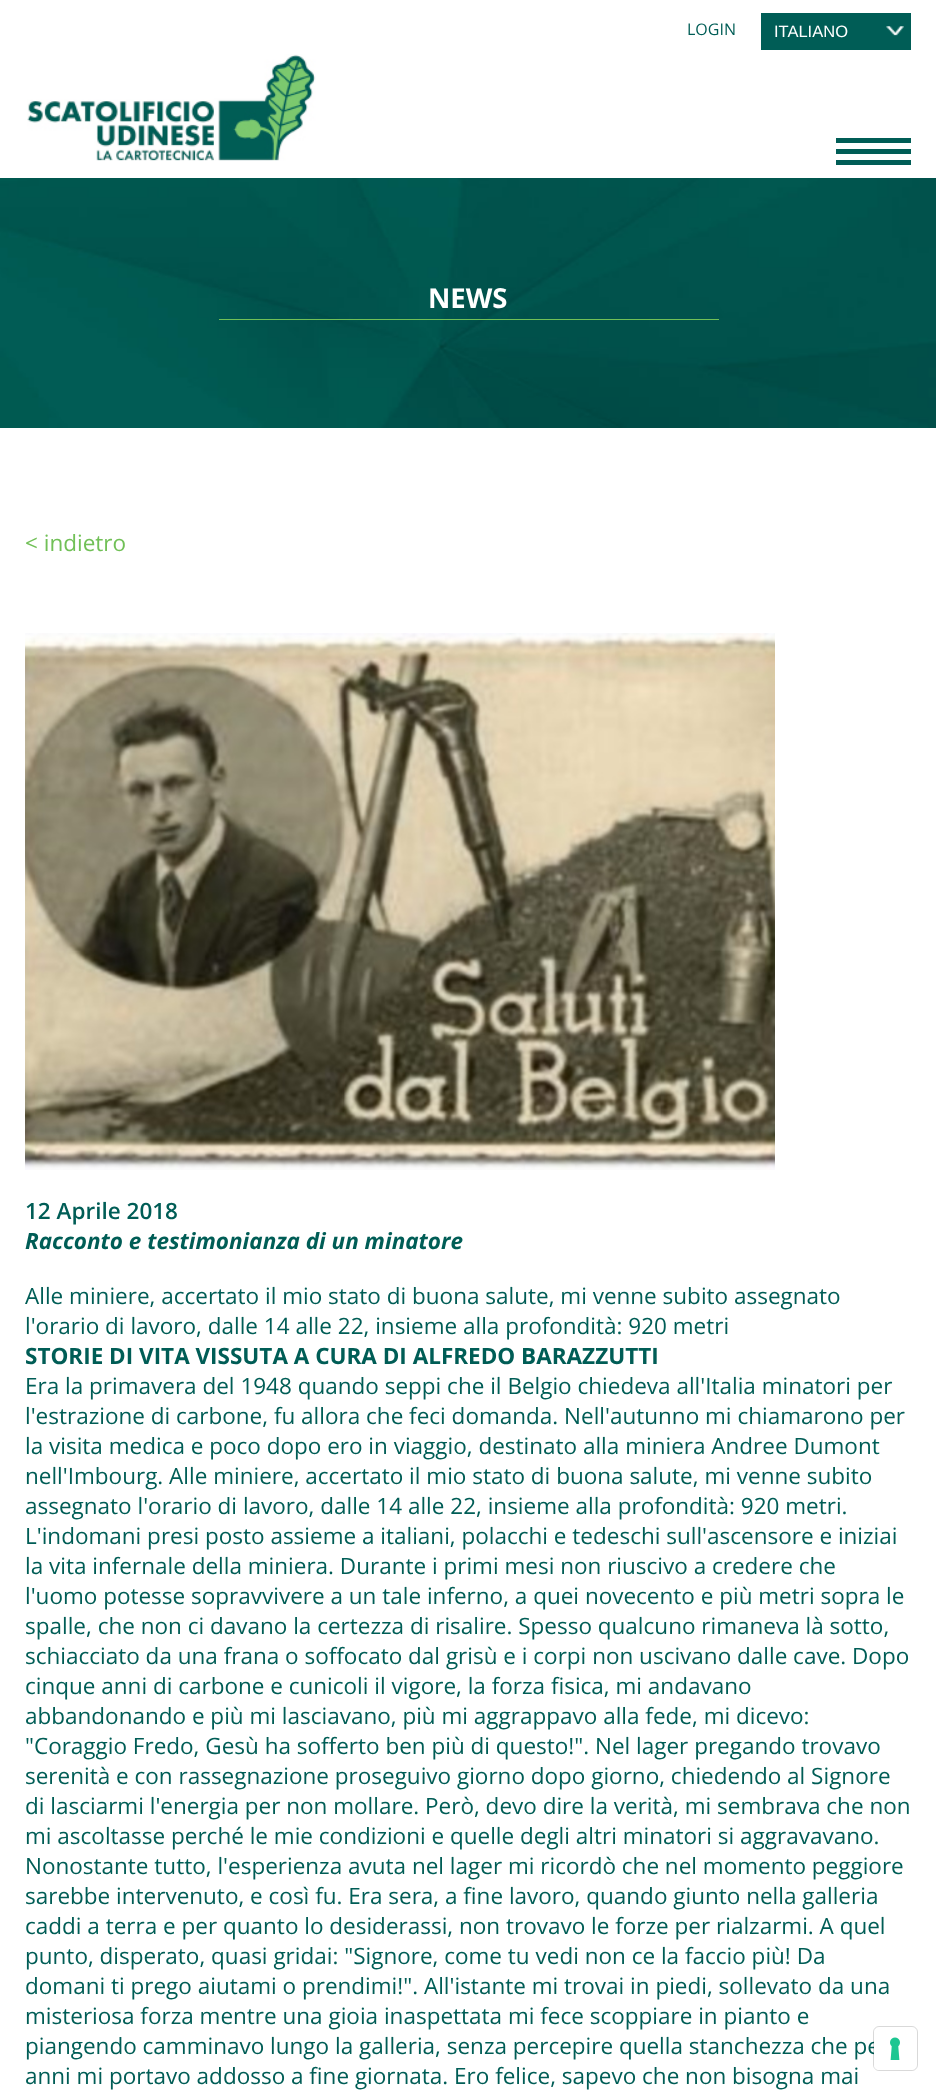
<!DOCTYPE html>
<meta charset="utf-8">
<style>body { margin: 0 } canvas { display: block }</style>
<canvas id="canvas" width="936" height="2090"></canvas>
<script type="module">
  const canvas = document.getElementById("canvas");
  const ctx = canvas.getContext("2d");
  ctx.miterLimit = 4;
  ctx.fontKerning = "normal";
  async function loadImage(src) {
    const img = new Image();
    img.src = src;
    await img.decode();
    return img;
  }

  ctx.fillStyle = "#ffffff";
  ctx.fillRect(0, 0, 936, 2090);
  ctx.font = "16px Open Sans";
  ctx.fillStyle = "#005d56";
  ctx.fillText("LOGIN", 687, 35);
  ctx.fillRect(761, 13, 150, 37);
  ctx.drawImage(await loadImage("img1.png"), 886, 26, 18, 10);
  ctx.font = "16.5px Liberation Sans";
  ctx.fillStyle = "#ffffff";
  ctx.fillText("ITALIANO", 774, 37);
  ctx.drawImage(await loadImage("img2.png"), 27, 54, 289, 107);
  ctx.fillStyle = "#005d56";
  ctx.fillRect(836, 138, 75, 5);
  ctx.fillRect(836, 149, 75, 5);
  ctx.fillRect(836, 160, 75, 5);
  ctx.drawImage(await loadImage("img3.png"), 0, 178, 936, 250);
  ctx.fillStyle = "#71c057";
  ctx.fillRect(219, 319, 500, 1);
  ctx.font = "bold 27.5px Open Sans";
  ctx.fillStyle = "#ffffff";
  ctx.fillText("NEWS", 428, 308);
  ctx.font = "22.5px Open Sans";
  ctx.fillStyle = "#71c057";
  ctx.fillText("< indietro", 25, 551);
  ctx.drawImage(await loadImage("img4.png"), 25, 633, 750, 537);
  ctx.font = "600 22.5px Open Sans";
  ctx.fillStyle = "#005d56";
  ctx.fillText("12 Aprile 2018", 25, 1219);
  ctx.font = "italic bold 22.5px Open Sans";
  ctx.fillText("Racconto e testimonianza di un minatore", 25, 1249);
  ctx.font = "22.5px Open Sans";
  ctx.fillText("Alle miniere, accertato il mio stato di buona salute, mi venne subito assegnato", 25, 1304);
  ctx.fillText("l'orario di lavoro, dalle 14 alle 22, insieme alla profondità: 920 metri", 25, 1334);
  ctx.font = "bold 22.5px Open Sans";
  ctx.fillText("STORIE DI VITA VISSUTA A CURA DI ALFREDO BARAZZUTTI", 25, 1364);
  ctx.font = "22.5px Open Sans";
  ctx.fillText("Era la primavera del 1948 quando seppi che il Belgio chiedeva all'Italia minatori per", 25, 1394);
  ctx.fillText("l'estrazione di carbone, fu allora che feci domanda. Nell'autunno mi chiamarono per", 25, 1424);
  ctx.fillText("la visita medica e poco dopo ero in viaggio, destinato alla miniera Andree Dumont", 25, 1454);
  ctx.fillText("nell'Imbourg. Alle miniere, accertato il mio stato di buona salute, mi venne subito", 25, 1484);
  ctx.fillText("assegnato l'orario di lavoro, dalle 14 alle 22, insieme alla profondità: 920 metri.", 25, 1514);
  ctx.fillText("L'indomani presi posto assieme a italiani, polacchi e tedeschi sull'ascensore e iniziai", 25, 1544);
  ctx.fillText("la vita infernale della miniera. Durante i primi mesi non riuscivo a credere che", 25, 1574);
  ctx.fillText("l'uomo potesse sopravvivere a un tale inferno, a quei novecento e più metri sopra le", 25, 1604);
  ctx.fillText("spalle, che non ci davano la certezza di risalire. Spesso qualcuno rimaneva là sotto,", 25, 1634);
  ctx.fillText("schiacciato da una frana o soffocato dal grisù e i corpi non uscivano dalle cave. Dopo", 25, 1664);
  ctx.fillText("cinque anni di carbone e cunicoli il vigore, la forza fisica, mi andavano", 25, 1694);
  ctx.fillText("abbandonando e più mi lasciavano, più mi aggrappavo alla fede, mi dicevo:", 25, 1724);
  ctx.fillText("\"Coraggio Fredo, Gesù ha sofferto ben più di questo!\". Nel lager pregando trovavo", 25, 1754);
  ctx.fillText("serenità e con rassegnazione proseguivo giorno dopo giorno, chiedendo al Signore", 25, 1784);
  ctx.fillText("di lasciarmi l'energia per non mollare. Però, devo dire la verità, mi sembrava che non", 25, 1814);
  ctx.fillText("mi ascoltasse perché le mie condizioni e quelle degli altri minatori si aggravavano.", 25, 1844);
  ctx.fillText("Nonostante tutto, l'esperienza avuta nel lager mi ricordò che nel momento peggiore", 25, 1874);
  ctx.fillText("sarebbe intervenuto, e così fu. Era sera, a fine lavoro, quando giunto nella galleria", 25, 1904);
  ctx.fillText("caddi a terra e per quanto lo desiderassi, non trovavo le forze per rialzarmi. A quel", 25, 1934);
  ctx.fillText("punto, disperato, quasi gridai: \"Signore, come tu vedi non ce la faccio più! Da", 25, 1964);
  ctx.fillText("domani ti prego aiutami o prendimi!\". All'istante mi trovai in piedi, sollevato da una", 25, 1994);
  ctx.fillText("misteriosa forza mentre una gioia inaspettata mi fece scoppiare in pianto e", 25, 2024);
  ctx.fillText("piangendo camminavo lungo la galleria, senza percepire quella stanchezza che pe", 25, 2054);
  ctx.fillText("anni mi portavo addosso a fine giornata. Ero felice, sapevo che non bisogna mai", 25, 2084);
  ctx.beginPath();
  ctx.roundRect(873.5, 2026.5, 44, 44, 5.5);
  ctx.strokeStyle = "rgba(0, 0, 0, 0.15)";
  ctx.stroke();
  ctx.fillStyle = "#ffffff";
  ctx.beginPath();
  ctx.roundRect(874, 2028, 42, 42, 5);
  ctx.fill();
  ctx.drawImage(await loadImage("img5.png"), 890, 2037, 10, 23);
</script>
